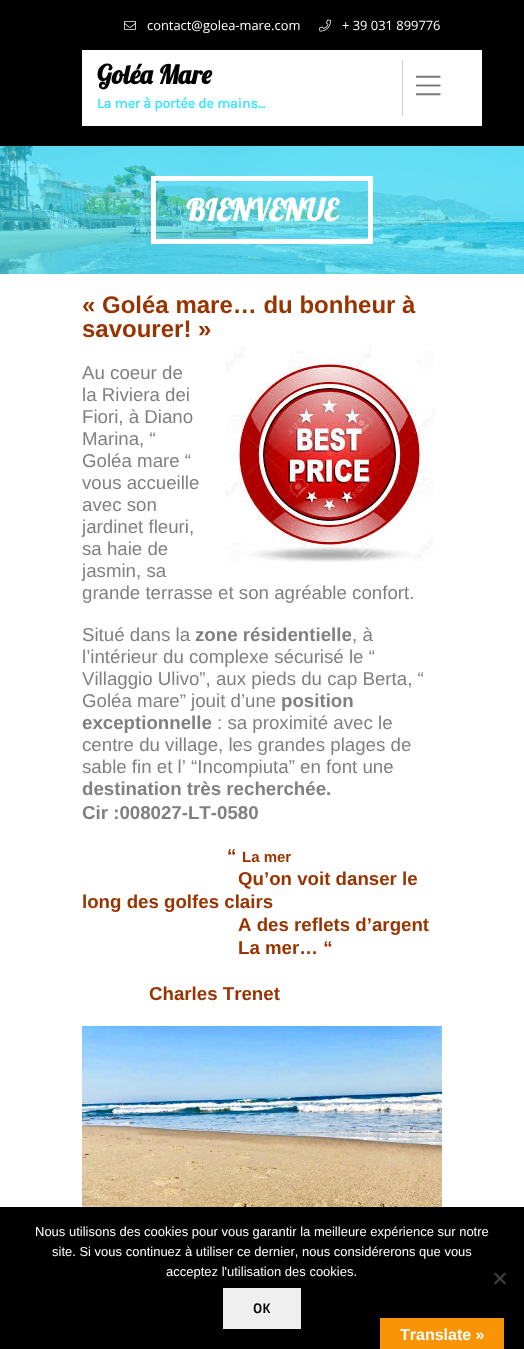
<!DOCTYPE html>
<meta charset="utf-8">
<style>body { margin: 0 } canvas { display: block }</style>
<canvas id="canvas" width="524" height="1349"></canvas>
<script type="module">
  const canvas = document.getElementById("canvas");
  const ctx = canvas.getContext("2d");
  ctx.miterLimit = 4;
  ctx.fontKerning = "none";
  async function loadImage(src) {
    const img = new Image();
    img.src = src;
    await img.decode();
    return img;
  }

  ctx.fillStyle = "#ffffff";
  ctx.fillRect(0, 0, 524, 1349);
  ctx.fillStyle = "#000000";
  ctx.fillRect(0, 0, 524, 146);
  ctx.drawImage(await loadImage("img1.png"), 124, 21, 12, 9);
  ctx.font = "12.9px Open Sans";
  ctx.fillStyle = "#ffffff";
  ctx.fillText("contact@golea-mare.com", 147, 30);
  ctx.drawImage(await loadImage("img2.png"), 319, 19, 12, 13);
  ctx.fillText("+ 39 031 899776", 342, 30);
  ctx.fillRect(82, 50, 400, 76);
  ctx.font = "bold 26px Lobster";
  ctx.fillStyle = "#000000";
  ctx.fillText("Goléa Mare", 97, 84);
  ctx.font = "bold 14px Karla";
  ctx.fillStyle = "#33e6ff";
  ctx.fillText("La mer à portée de mains…", 97, 108);
  ctx.fillStyle = "#cccccc";
  ctx.fillRect(402, 60, 1, 56);
  ctx.drawImage(await loadImage("img3.png"), 416, 75, 25, 21);
  ctx.drawImage(await loadImage("img4.png"), 0, 146, 524, 128);
  ctx.strokeStyle = "#ffffff";
  ctx.lineWidth = 5;
  ctx.strokeRect(153.5, 178.5, 217, 63);
  ctx.font = "bold 30px Lobster";
  ctx.fillStyle = "#ffffff";
  ctx.fillText("BIENVENUE", 186, 221);
  ctx.font = "bold 24px Liberation Sans";
  ctx.fillStyle = "#993300";
  ctx.fillText("« Goléa mare… du bonheur à", 82, 313);
  ctx.fillText("savourer! »", 82, 337);
  ctx.drawImage(await loadImage("img5.png"), 225, 346, 210, 217);
  ctx.font = "18.7px Liberation Sans";
  ctx.fillStyle = "#808080";
  ctx.fillText("Au coeur de", 82, 379);
  ctx.fillText("la Riviera dei", 82, 401);
  ctx.fillText("Fiori, à Diano", 82, 423);
  ctx.fillText("Marina, “", 82, 445);
  ctx.fillText("Goléa mare “", 82, 467);
  ctx.fillText("vous accueille", 82, 489);
  ctx.fillText("avec son", 82, 511);
  ctx.fillText("jardinet fleuri,", 82, 533);
  ctx.fillText("sa haie de", 82, 555);
  ctx.fillText("jasmin, sa", 82, 577);
  ctx.fillText("grande terrasse et son agréable confort.", 82, 599);
  ctx.fillText("Situé dans la", 82, 641);
  ctx.font = "bold 18.7px Liberation Sans";
  ctx.fillText("zone résidentielle", 195, 641);
  ctx.font = "18.7px Liberation Sans";
  ctx.fillText(", à", 352, 641);
  ctx.fillText("l’intérieur du complexe sécurisé le “", 82, 663);
  ctx.fillText("Villaggio Ulivo”, aux pieds du cap Berta, “", 82, 685);
  ctx.fillText("Goléa mare” jouit d’une", 82, 707);
  ctx.font = "bold 18.7px Liberation Sans";
  ctx.fillText("position", 281, 707);
  ctx.fillText("exceptionnelle", 82, 729);
  ctx.font = "18.7px Liberation Sans";
  ctx.fillText(": sa proximité avec le", 217, 729);
  ctx.fillText("centre du village, les grandes plages de", 82, 751);
  ctx.fillText("sable fin et l’ “Incompiuta” en font une", 82, 773);
  ctx.font = "bold 18.7px Liberation Sans";
  ctx.fillText("destination très recherchée.", 82, 795);
  ctx.fillText("Cir :008027-LT-0580", 82, 819);
  ctx.fillStyle = "#993300";
  ctx.fillText("“", 227, 862);
  ctx.font = "bold 15px Liberation Sans";
  ctx.fillText("La mer", 242, 862);
  ctx.font = "bold 18.7px Liberation Sans";
  ctx.fillText("Qu’on voit danser le", 238, 885);
  ctx.fillText("long des golfes clairs", 82, 908);
  ctx.fillText("A des reflets d’argent", 238, 931);
  ctx.fillText("La mer… “", 238, 954);
  ctx.fillText("Charles Trenet", 149, 1000);
  ctx.drawImage(await loadImage("img6.png"), 82, 1026, 360, 181);
  ctx.fillStyle = "#000000";
  ctx.fillRect(0, 1207, 524, 142);
  ctx.font = "13px Liberation Sans";
  ctx.fillStyle = "#ffffff";
  ctx.fillText("Nous utilisons des cookies pour vous garantir la meilleure expérience sur notre", 35, 1236);
  ctx.fillText("site. Si vous continuez à utiliser ce dernier, nous considérerons que vous", 52, 1256);
  ctx.fillText("acceptez l'utilisation des cookies.", 166, 1276);
  ctx.fillStyle = "#404040";
  ctx.beginPath();
  ctx.moveTo(504.5, 1272.5);
  ctx.lineTo(506, 1274);
  ctx.lineTo(495.5, 1284.5);
  ctx.lineTo(494, 1283);
  ctx.closePath();
  ctx.fill();
  ctx.beginPath();
  ctx.moveTo(494, 1274);
  ctx.lineTo(495.5, 1272.5);
  ctx.lineTo(506, 1283);
  ctx.lineTo(504.5, 1284.5);
  ctx.closePath();
  ctx.fill();
  ctx.fillStyle = "#efefef";
  ctx.fillRect(223, 1288, 78, 41);
  ctx.font = "bold 13px Sintony";
  ctx.fillStyle = "#000000";
  ctx.fillText("OK", 253, 1313);
  ctx.fillStyle = "#f89406";
  ctx.fillRect(380, 1318, 124, 31);
  ctx.font = "bold 16px Liberation Sans";
  ctx.fillStyle = "#ffffff";
  ctx.fillText("Translate »", 400, 1340);
</script>
